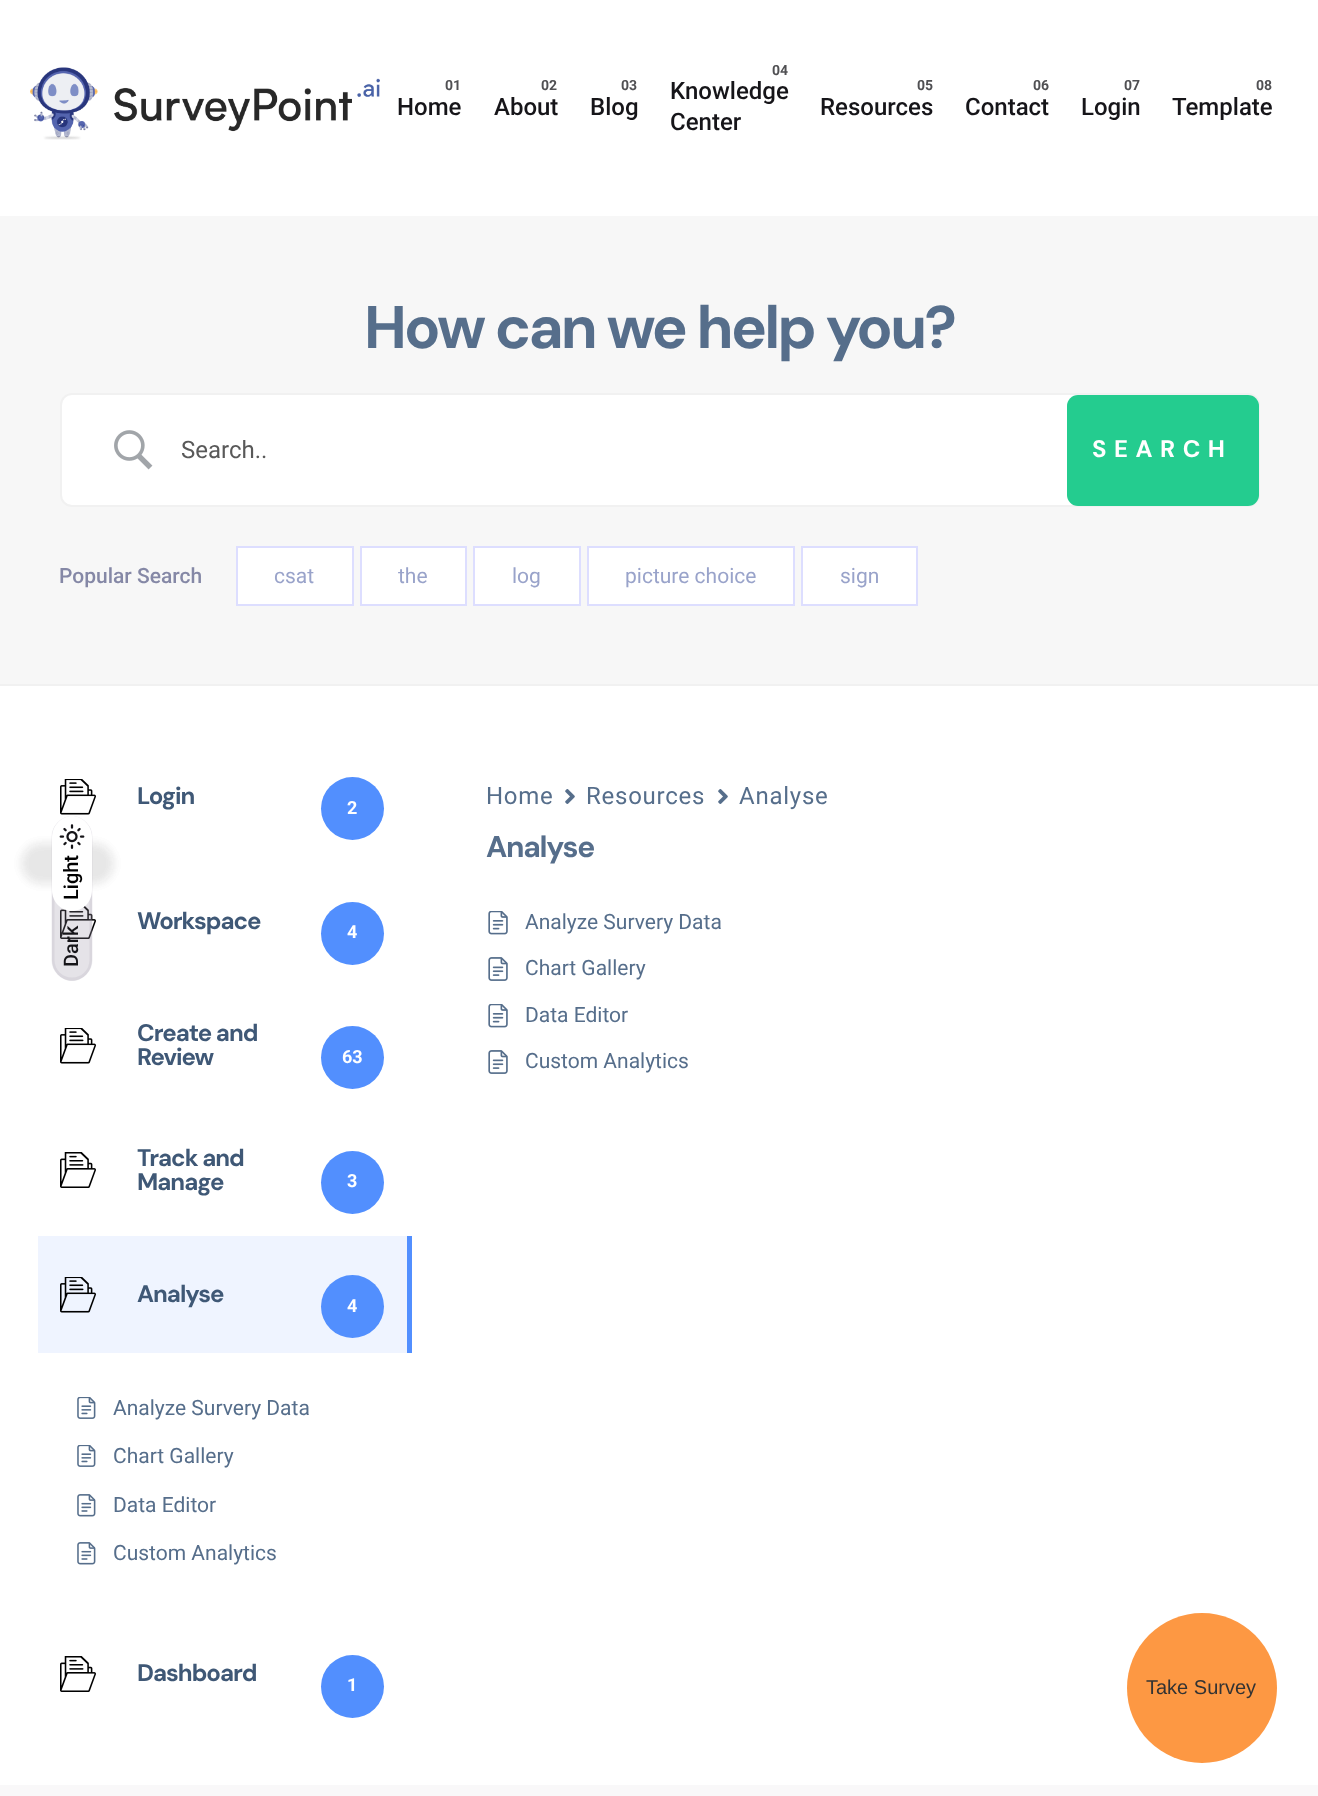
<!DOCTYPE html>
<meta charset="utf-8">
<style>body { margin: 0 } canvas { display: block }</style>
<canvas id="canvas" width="1318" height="1796"></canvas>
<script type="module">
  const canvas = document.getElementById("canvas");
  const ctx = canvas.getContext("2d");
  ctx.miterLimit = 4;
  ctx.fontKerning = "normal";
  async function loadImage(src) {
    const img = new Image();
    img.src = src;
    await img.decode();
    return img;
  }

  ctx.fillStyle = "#ffffff";
  ctx.fillRect(0, 0, 1318, 1796);
  ctx.drawImage(await loadImage("img1.png"), 30, 67, 350, 73);
  ctx.font = "bold 14px Roboto";
  ctx.fillStyle = "#505053";
  ctx.fillText("01", 445, 90);
  ctx.font = "500 24px Roboto";
  ctx.fillStyle = "#161519";
  ctx.fillText("Home", 397, 115);
  ctx.font = "bold 14px Roboto";
  ctx.fillStyle = "#505053";
  ctx.fillText("02", 541, 90);
  ctx.font = "500 24px Roboto";
  ctx.fillStyle = "#161519";
  ctx.fillText("About", 494, 115);
  ctx.font = "bold 14px Roboto";
  ctx.fillStyle = "#505053";
  ctx.fillText("03", 621, 90);
  ctx.font = "500 24px Roboto";
  ctx.fillStyle = "#161519";
  ctx.fillText("Blog", 590, 115);
  ctx.font = "bold 14px Roboto";
  ctx.fillStyle = "#505053";
  ctx.fillText("04", 772, 75);
  ctx.font = "500 24px Roboto";
  ctx.fillStyle = "#161519";
  ctx.fillText("Knowledge", 670, 99);
  ctx.fillText("Center", 670, 130);
  ctx.font = "bold 14px Roboto";
  ctx.fillStyle = "#505053";
  ctx.fillText("05", 917, 90);
  ctx.font = "500 24px Roboto";
  ctx.fillStyle = "#161519";
  ctx.fillText("Resources", 820, 115);
  ctx.font = "bold 14px Roboto";
  ctx.fillStyle = "#505053";
  ctx.fillText("06", 1033, 90);
  ctx.font = "500 24px Roboto";
  ctx.fillStyle = "#161519";
  ctx.fillText("Contact", 965, 115);
  ctx.font = "bold 14px Roboto";
  ctx.fillStyle = "#505053";
  ctx.fillText("07", 1124, 90);
  ctx.font = "500 24px Roboto";
  ctx.fillStyle = "#161519";
  ctx.fillText("Login", 1081, 115);
  ctx.font = "bold 14px Roboto";
  ctx.fillStyle = "#505053";
  ctx.fillText("08", 1256, 90);
  ctx.font = "500 24px Roboto";
  ctx.fillStyle = "#161519";
  ctx.fillText("Template", 1172, 115);
  ctx.fillStyle = "#f7f7f7";
  ctx.fillRect(0, 216, 1318, 468);
  ctx.fillStyle = "#f1f1f1";
  ctx.fillRect(0, 684, 1318, 2);
  ctx.letterSpacing = "-2.75px";
  ctx.font = "bold 60px DM Sans";
  ctx.fillStyle = "#566e8b";
  ctx.fillText("How can we help you?", 364, 348);
  ctx.fillStyle = "#ffffff";
  ctx.beginPath();
  ctx.roundRect(61, 394, 1198, 112, 11);
  ctx.fill();
  ctx.strokeStyle = "#f1f1f1";
  ctx.lineWidth = 2;
  ctx.stroke();
  ctx.drawImage(await loadImage("img2.png"), 114, 430, 39, 40);
  ctx.letterSpacing = "0px";
  ctx.font = "24px Roboto";
  ctx.fillStyle = "#595959";
  ctx.fillText("Search..", 181, 458);
  ctx.fillStyle = "#24cc8f";
  ctx.beginPath();
  ctx.roundRect(1067, 395, 192, 111, 11);
  ctx.fill();
  ctx.letterSpacing = "7.5px";
  ctx.font = "bold 24px DM Sans";
  ctx.fillStyle = "#ffffff";
  ctx.fillText("SEARCH", 1092, 457);
  ctx.letterSpacing = "0px";
  ctx.font = "500 21px Roboto";
  ctx.fillStyle = "#8588a6";
  ctx.fillText("Popular Search", 59, 583);
  ctx.fillStyle = "#ffffff";
  ctx.beginPath();
  ctx.rect(237, 547, 116, 58);
  ctx.fill();
  ctx.strokeStyle = "#dddeff";
  ctx.stroke();
  ctx.font = "21px Roboto";
  ctx.fillStyle = "#99a3ca";
  ctx.fillText("csat", 274, 583);
  ctx.fillStyle = "#ffffff";
  ctx.beginPath();
  ctx.rect(361, 547, 105, 58);
  ctx.fill();
  ctx.stroke();
  ctx.fillStyle = "#99a3ca";
  ctx.fillText("the", 398, 583);
  ctx.fillStyle = "#ffffff";
  ctx.beginPath();
  ctx.rect(474, 547, 106, 58);
  ctx.fill();
  ctx.stroke();
  ctx.fillStyle = "#99a3ca";
  ctx.fillText("log", 512, 583);
  ctx.fillStyle = "#ffffff";
  ctx.beginPath();
  ctx.rect(588, 547, 206, 58);
  ctx.fill();
  ctx.stroke();
  ctx.fillStyle = "#99a3ca";
  ctx.fillText("picture choice", 625, 583);
  ctx.fillStyle = "#ffffff";
  ctx.beginPath();
  ctx.rect(802, 547, 115, 58);
  ctx.fill();
  ctx.stroke();
  ctx.fillStyle = "#99a3ca";
  ctx.fillText("sign", 840, 583);
  ctx.drawImage(await loadImage("img3.png"), 60, 779, 36, 36);
  ctx.letterSpacing = "-1px";
  ctx.font = "bold 24px DM Sans";
  ctx.fillStyle = "#3f5876";
  ctx.fillText("Login", 137, 804);
  ctx.fillStyle = "#528ffe";
  ctx.beginPath();
  ctx.arc(352.5, 808.5, 31.5, 0, Math.PI * 2);
  ctx.fill();
  ctx.letterSpacing = "0px";
  ctx.font = "bold 18px Roboto";
  ctx.fillStyle = "#ffffff";
  ctx.fillText("2", 347, 814);
  ctx.drawImage(await loadImage("img4.png"), 60, 906, 36, 33);
  ctx.letterSpacing = "-1px";
  ctx.font = "bold 24px DM Sans";
  ctx.fillStyle = "#3f5876";
  ctx.fillText("Workspace", 137, 929);
  ctx.fillStyle = "#528ffe";
  ctx.beginPath();
  ctx.arc(352.5, 933.5, 31.5, 0, Math.PI * 2);
  ctx.fill();
  ctx.letterSpacing = "0px";
  ctx.font = "bold 18px Roboto";
  ctx.fillStyle = "#ffffff";
  ctx.fillText("4", 347, 938);
  ctx.drawImage(await loadImage("img3.png"), 60, 1028, 36, 36);
  ctx.letterSpacing = "-1px";
  ctx.font = "bold 24px DM Sans";
  ctx.fillStyle = "#3f5876";
  ctx.fillText("Create and", 137, 1041);
  ctx.fillText("Review", 137, 1065);
  ctx.fillStyle = "#528ffe";
  ctx.beginPath();
  ctx.arc(352.5, 1057.5, 31.5, 0, Math.PI * 2);
  ctx.fill();
  ctx.letterSpacing = "0px";
  ctx.font = "bold 18px Roboto";
  ctx.fillStyle = "#ffffff";
  ctx.fillText("63", 342, 1063);
  ctx.drawImage(await loadImage("img5.png"), 60, 1152, 36, 36);
  ctx.letterSpacing = "-1px";
  ctx.font = "bold 24px DM Sans";
  ctx.fillStyle = "#3f5876";
  ctx.fillText("Track and", 137, 1166);
  ctx.fillText("Manage", 137, 1190);
  ctx.fillStyle = "#528ffe";
  ctx.beginPath();
  ctx.arc(352.5, 1182.5, 31.5, 0, Math.PI * 2);
  ctx.fill();
  ctx.letterSpacing = "0px";
  ctx.font = "bold 18px Roboto";
  ctx.fillStyle = "#ffffff";
  ctx.fillText("3", 347, 1187);
  ctx.fillStyle = "#eff4ff";
  ctx.fillRect(38, 1236, 369, 117);
  ctx.fillStyle = "#528fff";
  ctx.fillRect(407, 1236, 5, 117);
  ctx.drawImage(await loadImage("img6.png"), 60, 1277, 36, 36);
  ctx.letterSpacing = "-1px";
  ctx.font = "bold 24px DM Sans";
  ctx.fillStyle = "#3f5876";
  ctx.fillText("Analyse", 137, 1302);
  ctx.fillStyle = "#528ffe";
  ctx.beginPath();
  ctx.arc(352.5, 1306.5, 31.5, 0, Math.PI * 2);
  ctx.fill();
  ctx.letterSpacing = "0px";
  ctx.font = "bold 18px Roboto";
  ctx.fillStyle = "#ffffff";
  ctx.fillText("4", 347, 1312);
  ctx.drawImage(await loadImage("img7.png"), 77, 1397, 19, 22);
  ctx.font = "21px Roboto";
  ctx.fillStyle = "#566e8b";
  ctx.fillText("Analyze Survery Data", 113, 1415);
  ctx.drawImage(await loadImage("img7.png"), 77, 1445, 19, 22);
  ctx.fillText("Chart Gallery", 113, 1463);
  ctx.drawImage(await loadImage("img8.png"), 77, 1494, 19, 23);
  ctx.fillText("Data Editor", 113, 1512);
  ctx.drawImage(await loadImage("img8.png"), 77, 1542, 19, 23);
  ctx.fillText("Custom Analytics", 113, 1560);
  ctx.drawImage(await loadImage("img5.png"), 60, 1656, 36, 36);
  ctx.letterSpacing = "-1px";
  ctx.font = "bold 24px DM Sans";
  ctx.fillStyle = "#3f5876";
  ctx.fillText("Dashboard", 137, 1681);
  ctx.fillStyle = "#528ffe";
  ctx.beginPath();
  ctx.arc(352.5, 1686.5, 31.5, 0, Math.PI * 2);
  ctx.fill();
  ctx.letterSpacing = "0px";
  ctx.font = "bold 18px Roboto";
  ctx.fillStyle = "#ffffff";
  ctx.fillText("1", 347, 1691);
  ctx.letterSpacing = "0.75px";
  ctx.font = "24px Roboto";
  ctx.fillStyle = "#566e8b";
  ctx.fillText("Home", 486, 804);
  ctx.drawImage(await loadImage("img9.png"), 565, 789, 10, 15);
  ctx.fillText("Resources", 586, 804);
  ctx.drawImage(await loadImage("img9.png"), 718, 789, 10, 15);
  ctx.fillText("Analyse", 739, 804);
  ctx.letterSpacing = "-1.25px";
  ctx.font = "bold 30px DM Sans";
  ctx.fillText("Analyse", 486, 857);
  ctx.drawImage(await loadImage("img10.png"), 488, 911, 20, 24);
  ctx.letterSpacing = "0px";
  ctx.font = "21px Roboto";
  ctx.fillText("Analyze Survery Data", 525, 929);
  ctx.drawImage(await loadImage("img11.png"), 488, 957, 20, 24);
  ctx.fillText("Chart Gallery", 525, 975);
  ctx.drawImage(await loadImage("img10.png"), 488, 1004, 20, 24);
  ctx.fillText("Data Editor", 525, 1022);
  ctx.drawImage(await loadImage("img11.png"), 488, 1050, 20, 24);
  ctx.fillText("Custom Analytics", 525, 1068);
  ctx.fillStyle = "#f9f8f9";
  ctx.fillRect(0, 1785, 1318, 11);
  ctx.fillStyle = "rgba(150, 144, 162, 0.25)";
  ctx.beginPath();
  ctx.moveTo(52, 960);
  ctx.lineTo(52, 837);
  ctx.bezierCurveTo(52, 826, 61, 816, 72, 816);
  ctx.bezierCurveTo(83, 816, 92, 826, 92, 837);
  ctx.lineTo(92, 960);
  ctx.bezierCurveTo(92, 971, 83, 981, 72, 981);
  ctx.bezierCurveTo(61, 981, 52, 971, 52, 960);
  ctx.closePath();
  ctx.fill();
  ctx.beginPath();
  ctx.moveTo(53, 960);
  ctx.lineTo(53, 837);
  ctx.bezierCurveTo(53, 826.5, 61.5, 818, 72, 818);
  ctx.bezierCurveTo(82.5, 818, 91, 826.5, 91, 837);
  ctx.lineTo(91, 960);
  ctx.bezierCurveTo(91, 970.5, 82.5, 979, 72, 979);
  ctx.bezierCurveTo(61.5, 979, 53, 970.5, 53, 960);
  ctx.closePath();
  ctx.strokeStyle = "rgba(150, 144, 162, 0.15)";
  ctx.lineWidth = 3;
  ctx.stroke();
  ctx.fillStyle = "rgba(17, 16, 19, 0.05)";
  ctx.filter = "blur(4.5px)";
  ctx.beginPath();
  ctx.roundRect(21, 843, 93, 41, 20.5);
  ctx.fill();
  ctx.filter = "none";
  ctx.filter = "blur(4.5px)";
  ctx.beginPath();
  ctx.roundRect(21, 843, 93, 41, 20.5);
  ctx.fill();
  ctx.filter = "none";
  ctx.fillStyle = "#ffffff";
  ctx.beginPath();
  ctx.moveTo(52, 890);
  ctx.lineTo(52, 837);
  ctx.bezierCurveTo(52, 826, 61, 816, 72, 816);
  ctx.bezierCurveTo(83, 816, 92, 826, 92, 837);
  ctx.lineTo(92, 890);
  ctx.bezierCurveTo(92, 902, 83, 911, 72, 911);
  ctx.bezierCurveTo(61, 911, 52, 902, 52, 890);
  ctx.closePath();
  ctx.fill();
  ctx.drawImage(await loadImage("img12.png"), 59, 824, 26, 25);
  ctx.font = "500 20px Roboto";
  ctx.fillStyle = "#000000";
  ctx.save();
  ctx.translate(78, 900);
  ctx.rotate(-90 * Math.PI / 180);
  ctx.fillText("Light", 0, 0);
  ctx.restore();
  ctx.fillStyle = "#161519";
  ctx.save();
  ctx.translate(78, 967);
  ctx.rotate(-90 * Math.PI / 180);
  ctx.fillText("Dark", 0, 0);
  ctx.restore();
  ctx.fillStyle = "#fd9843";
  ctx.beginPath();
  ctx.arc(1202, 1688, 75, 0, Math.PI * 2);
  ctx.fill();
  ctx.font = "20px Liberation Sans";
  ctx.fillStyle = "#333333";
  ctx.fillText("Take Survey", 1146, 1694);
</script>
